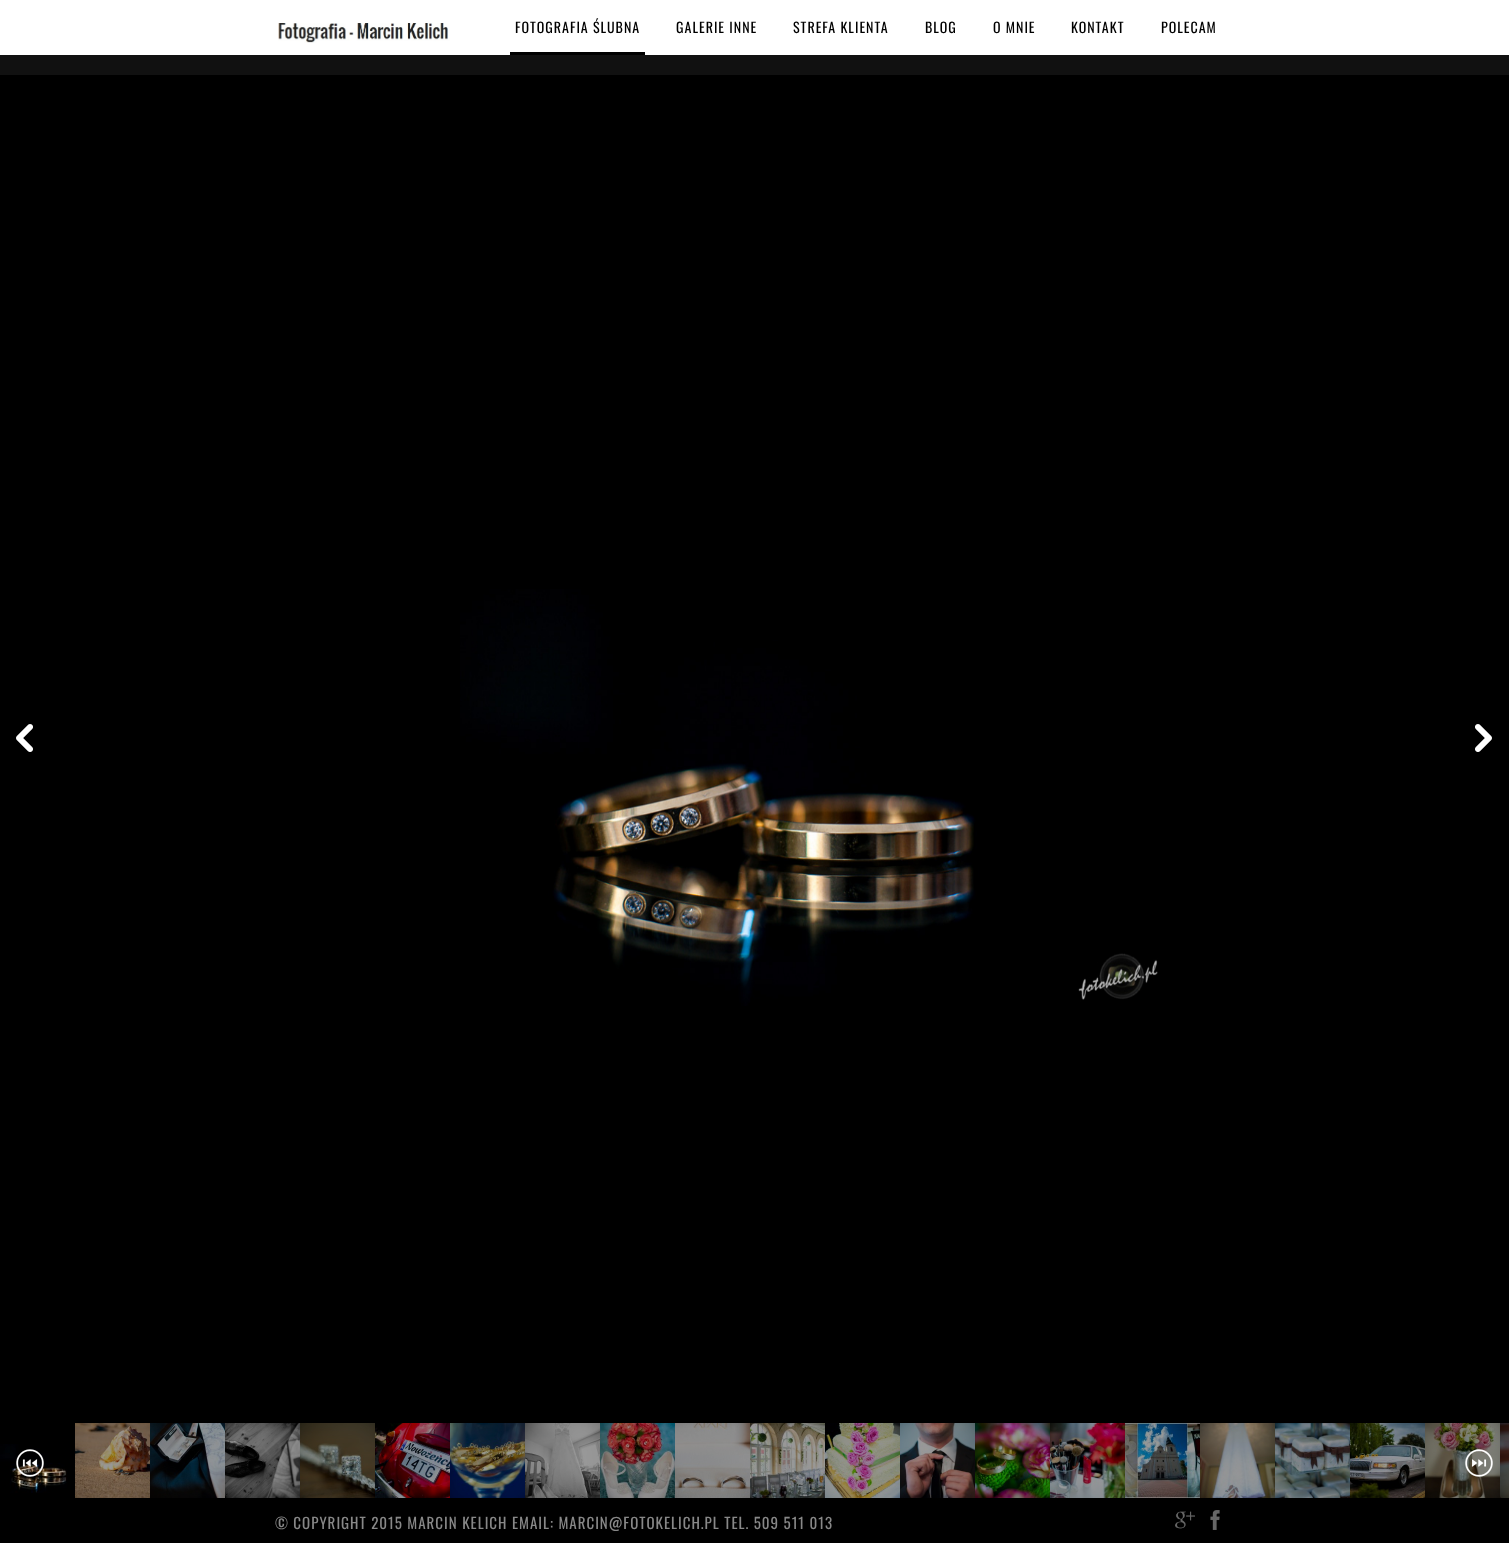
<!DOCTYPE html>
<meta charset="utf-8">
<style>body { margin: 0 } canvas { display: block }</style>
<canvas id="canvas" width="1509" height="1543"></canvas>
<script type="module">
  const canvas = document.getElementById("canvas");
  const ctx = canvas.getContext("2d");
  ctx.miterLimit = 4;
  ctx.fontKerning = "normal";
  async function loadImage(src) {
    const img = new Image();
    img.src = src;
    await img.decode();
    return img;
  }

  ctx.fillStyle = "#111111";
  ctx.fillRect(0, 0, 1509, 1543);
  ctx.fillStyle = "#ffffff";
  ctx.fillRect(0, 0, 1509, 55);
  ctx.drawImage(await loadImage("img1.png"), 278, 23, 172, 20);
  ctx.fillStyle = "#000000";
  ctx.fillRect(510, 52, 135, 3);
  ctx.letterSpacing = "1px";
  ctx.font = "14px Oswald";
  ctx.fillText("FOTOGRAFIA ŚLUBNA", 515, 33);
  ctx.fillText("GALERIE INNE", 676, 33);
  ctx.fillText("STREFA KLIENTA", 793, 33);
  ctx.fillText("BLOG", 925, 33);
  ctx.fillText("O MNIE", 993, 33);
  ctx.fillText("KONTAKT", 1071, 33);
  ctx.fillText("POLECAM", 1161, 33);
  ctx.fillRect(0, 75, 1509, 1468);
  ctx.drawImage(await loadImage("img2.png"), 16, 724, 17, 28);
  ctx.drawImage(await loadImage("img3.png"), 1475, 724, 17, 28);
  ctx.drawImage(await loadImage("img4.png"), 0, 1444, 67, 49);
  ctx.drawImage(await loadImage("img5.png"), 75, 1423, 75, 75);
  ctx.drawImage(await loadImage("img6.png"), 150, 1423, 75, 75);
  ctx.drawImage(await loadImage("img7.png"), 225, 1423, 75, 75);
  ctx.drawImage(await loadImage("img8.png"), 300, 1423, 75, 75);
  ctx.drawImage(await loadImage("img9.png"), 375, 1423, 75, 75);
  ctx.drawImage(await loadImage("img10.png"), 450, 1423, 75, 75);
  ctx.drawImage(await loadImage("img11.png"), 525, 1423, 75, 75);
  ctx.drawImage(await loadImage("img12.png"), 600, 1423, 75, 75);
  ctx.drawImage(await loadImage("img13.png"), 675, 1423, 75, 75);
  ctx.drawImage(await loadImage("img14.png"), 750, 1423, 75, 75);
  ctx.drawImage(await loadImage("img15.png"), 825, 1423, 75, 75);
  ctx.drawImage(await loadImage("img16.png"), 900, 1423, 75, 75);
  ctx.drawImage(await loadImage("img17.png"), 975, 1423, 75, 75);
  ctx.drawImage(await loadImage("img18.png"), 1050, 1423, 75, 75);
  ctx.drawImage(await loadImage("img19.png"), 1125, 1423, 75, 75);
  ctx.drawImage(await loadImage("img20.png"), 1200, 1423, 75, 75);
  ctx.drawImage(await loadImage("img21.png"), 1275, 1423, 75, 75);
  ctx.drawImage(await loadImage("img22.png"), 1350, 1423, 75, 75);
  ctx.drawImage(await loadImage("img23.png"), 1425, 1423, 75, 75);
  ctx.drawImage(await loadImage("img24.png"), 1500, 1423, 9, 75);
  ctx.drawImage(await loadImage("img25.png"), 16, 1449, 28, 28);
  ctx.drawImage(await loadImage("img26.png"), 1465, 1449, 28, 28);
  ctx.drawImage(await loadImage("img27.png"), 460, 589, 698, 417);
  ctx.font = "15px Oswald";
  ctx.fillStyle = "#888888";
  ctx.fillText("© COPYRIGHT 2015 MARCIN KELICH EMAIL: MARCIN@FOTOKELICH.PL TEL. 509 511 013", 275, 1529);
  ctx.drawImage(await loadImage("img28.png"), 1175, 1511, 20, 18);
  ctx.drawImage(await loadImage("img29.png"), 1210, 1510, 10, 20);
</script>
